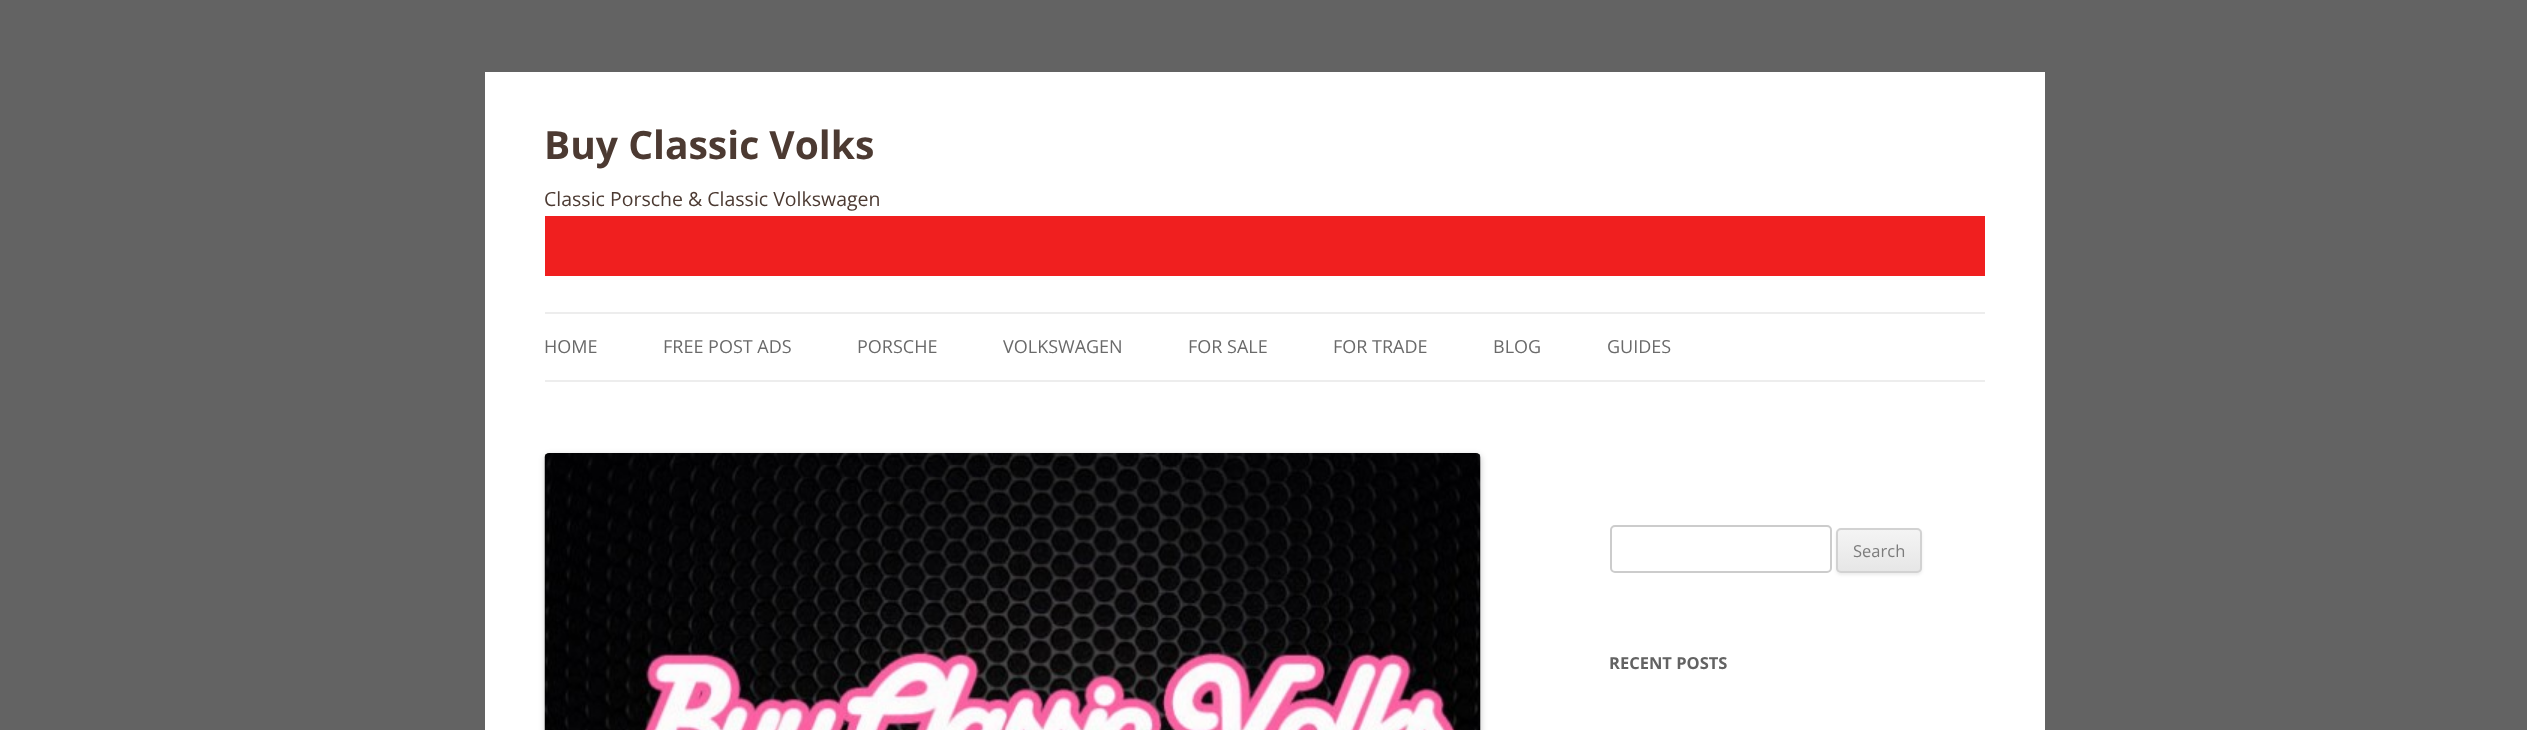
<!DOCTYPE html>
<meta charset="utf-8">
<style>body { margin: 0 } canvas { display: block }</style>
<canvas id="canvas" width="2527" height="730"></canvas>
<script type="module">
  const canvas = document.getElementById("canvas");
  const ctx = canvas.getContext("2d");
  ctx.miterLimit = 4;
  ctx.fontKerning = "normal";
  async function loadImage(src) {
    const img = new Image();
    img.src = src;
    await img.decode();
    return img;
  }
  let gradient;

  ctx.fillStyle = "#636363";
  ctx.fillRect(0, 0, 2527, 730);
  ctx.fillStyle = "#ffffff";
  ctx.fillRect(485, 72, 1560, 658);
  ctx.font = "bold 39px Open Sans";
  ctx.fillStyle = "#4c3a32";
  ctx.fillText("Buy Classic Volks", 544, 159);
  ctx.font = "19.5px Open Sans";
  ctx.fillText("Classic Porsche & Classic Volkswagen", 544, 206);
  ctx.fillStyle = "#f01f1f";
  ctx.fillRect(545, 216, 1440, 60);
  ctx.fillStyle = "#ededed";
  ctx.fillRect(545, 312, 1440, 2);
  ctx.fillRect(545, 380, 1440, 2);
  ctx.font = "18px Open Sans";
  ctx.fillStyle = "#6a6a6a";
  ctx.fillText("HOME", 544, 353);
  ctx.fillText("FREE POST ADS", 663, 353);
  ctx.fillText("PORSCHE", 857, 353);
  ctx.fillText("VOLKSWAGEN", 1003, 353);
  ctx.fillText("FOR SALE", 1188, 353);
  ctx.fillText("FOR TRADE", 1333, 353);
  ctx.fillText("BLOG", 1493, 353);
  ctx.fillText("GUIDES", 1607, 353);
  ctx.fillStyle = "rgba(0, 0, 0, 0.2)";
  ctx.filter = "blur(3px)";
  ctx.beginPath();
  ctx.roundRect(545, 455, 936, 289, 5);
  ctx.fill();
  ctx.filter = "none";
  ctx.drawImage(await loadImage("img1.png"), 544, 453, 937, 277);
  ctx.beginPath();
  ctx.roundRect(1611, 526, 220, 46, 4);
  ctx.strokeStyle = "#cccccc";
  ctx.lineWidth = 2;
  ctx.stroke();
  ctx.fillStyle = "rgba(64, 64, 64, 0.1)";
  ctx.filter = "blur(1.5px)";
  ctx.beginPath();
  ctx.roundRect(1836, 530, 86, 45, 5);
  ctx.fill();
  ctx.filter = "none";
  ctx.save();
  ctx.beginPath();
  ctx.roundRect(1836, 528, 86, 45, 5);
  ctx.clip();
  gradient = ctx.createLinearGradient(1879, 530, 1879, 572);
  gradient.addColorStop(0, "#f4f4f4");
  gradient.addColorStop(1, "#e6e6e6");
  ctx.fillStyle = gradient;
  ctx.fillRect(1836, 530, 86, 42);
  ctx.restore();
  ctx.beginPath();
  ctx.roundRect(1837, 529, 84, 43, 4);
  ctx.strokeStyle = "#d2d2d2";
  ctx.stroke();
  ctx.font = "16.5px Open Sans";
  ctx.fillStyle = "#7c7c7c";
  ctx.fillText("Search", 1853, 557);
  ctx.font = "bold 16.5px Open Sans";
  ctx.fillStyle = "#636363";
  ctx.fillText("RECENT POSTS", 1609, 669);
</script>
